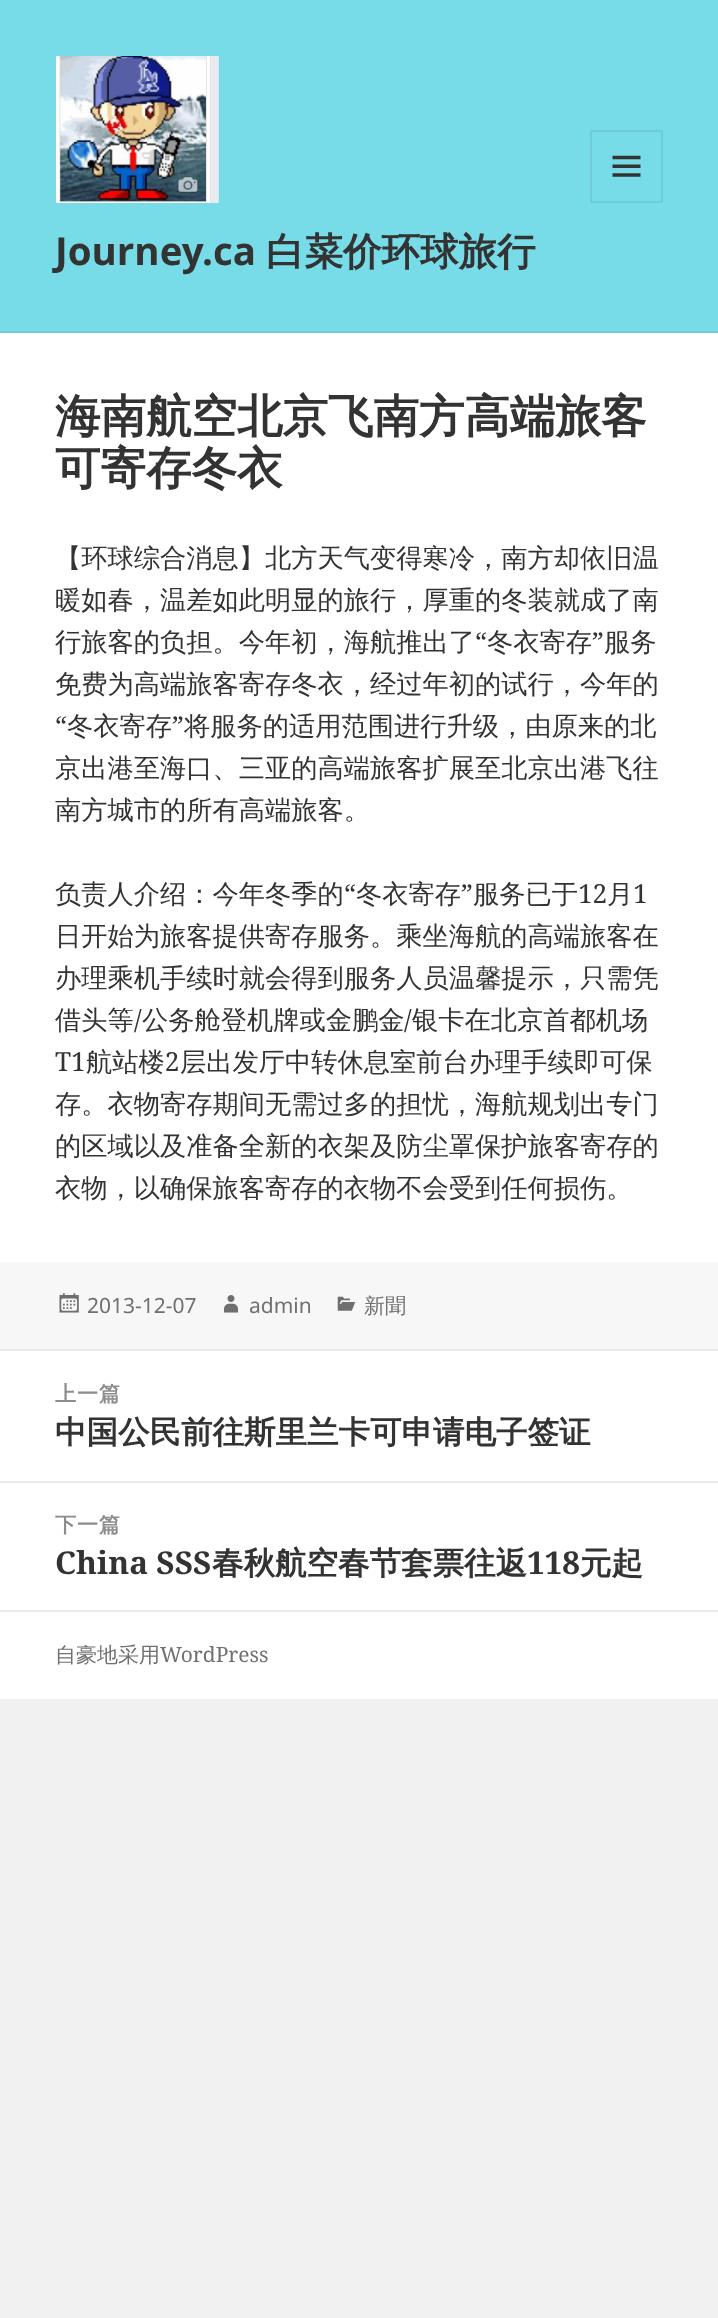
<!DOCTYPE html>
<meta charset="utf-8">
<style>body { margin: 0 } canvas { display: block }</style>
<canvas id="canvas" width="718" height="2318"></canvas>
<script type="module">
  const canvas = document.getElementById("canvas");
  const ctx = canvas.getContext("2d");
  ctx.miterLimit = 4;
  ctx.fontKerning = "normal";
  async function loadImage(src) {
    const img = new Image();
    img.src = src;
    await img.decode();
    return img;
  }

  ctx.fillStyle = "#f1f1f1";
  ctx.fillRect(0, 0, 718, 2318);
  ctx.fillStyle = "#78dce8";
  ctx.fillRect(0, 0, 718, 331);
  ctx.fillStyle = "#71cbd6";
  ctx.fillRect(0, 331, 718, 2);
  ctx.drawImage(await loadImage("img1.png"), 56, 56, 163, 147);
  ctx.strokeStyle = "#71cbd6";
  ctx.lineWidth = 2;
  ctx.strokeRect(591, 131, 71, 71);
  ctx.drawImage(await loadImage("img2.png"), 612, 155, 29, 22);
  ctx.font = "bold 38.5px Noto Sans";
  ctx.fillStyle = "#333333";
  ctx.fillText("Journey.ca", 55, 265);
  ctx.font = "bold 38.5px WenQuanYi Zen Hei";
  ctx.fillText("白菜价环球旅行", 266, 265);
  ctx.fillStyle = "#ffffff";
  ctx.fillRect(0, 333, 718, 929);
  ctx.font = "bold 45.5px WenQuanYi Zen Hei";
  ctx.fillStyle = "#333333";
  ctx.fillText("海南航空北京飞南方高端旅客", 55, 432);
  ctx.fillText("可寄存冬衣", 55, 484);
  ctx.font = "500 26.25px WenQuanYi Zen Hei";
  ctx.fillText("【环球综合消息】北方天气变得寒冷，南方却依旧温", 55, 567);
  ctx.fillText("暖如春，温差如此明显的旅行，厚重的冬装就成了南", 55, 609);
  ctx.fillText("行旅客的负担。今年初，海航推出了", 55, 651);
  ctx.font = "26.25px Noto Serif";
  ctx.fillText("“", 475, 651);
  ctx.font = "500 26.25px WenQuanYi Zen Hei";
  ctx.fillText("冬衣寄存", 487, 651);
  ctx.font = "26.25px Noto Serif";
  ctx.fillText("”", 592, 651);
  ctx.font = "500 26.25px WenQuanYi Zen Hei";
  ctx.fillText("服务", 604, 651);
  ctx.fillText("免费为高端旅客寄存冬衣，经过年初的试行，今年的", 55, 693);
  ctx.font = "26.25px Noto Serif";
  ctx.fillText("“", 55, 735);
  ctx.font = "500 26.25px WenQuanYi Zen Hei";
  ctx.fillText("冬衣寄存", 67, 735);
  ctx.font = "26.25px Noto Serif";
  ctx.fillText("”", 172, 735);
  ctx.font = "500 26.25px WenQuanYi Zen Hei";
  ctx.fillText("将服务的适用范围进行升级，由原来的北", 184, 735);
  ctx.fillText("京出港至海口、三亚的高端旅客扩展至北京出港飞往", 55, 777);
  ctx.fillText("南方城市的所有高端旅客。", 55, 819);
  ctx.fillText("负责人介绍：今年冬季的", 55, 903);
  ctx.font = "26.25px Noto Serif";
  ctx.fillText("“", 344, 903);
  ctx.font = "500 26.25px WenQuanYi Zen Hei";
  ctx.fillText("冬衣寄存", 356, 903);
  ctx.font = "26.25px Noto Serif";
  ctx.fillText("”", 461, 903);
  ctx.font = "500 26.25px WenQuanYi Zen Hei";
  ctx.fillText("服务已于", 473, 903);
  ctx.font = "26.25px Noto Serif";
  ctx.fillText("12", 578, 903);
  ctx.font = "500 26.25px WenQuanYi Zen Hei";
  ctx.fillText("月", 607, 903);
  ctx.font = "26.25px Noto Serif";
  ctx.fillText("1", 633, 903);
  ctx.font = "500 26.25px WenQuanYi Zen Hei";
  ctx.fillText("日开始为旅客提供寄存服务。乘坐海航的高端旅客在", 55, 945);
  ctx.fillText("办理乘机手续时就会得到服务人员温馨提示，只需凭", 55, 987);
  ctx.fillText("借头等", 55, 1029);
  ctx.font = "26.25px Noto Serif";
  ctx.fillText("/", 134, 1029);
  ctx.font = "500 26.25px WenQuanYi Zen Hei";
  ctx.fillText("公务舱登机牌或金鹏金", 142, 1029);
  ctx.font = "26.25px Noto Serif";
  ctx.fillText("/", 404, 1029);
  ctx.font = "500 26.25px WenQuanYi Zen Hei";
  ctx.fillText("银卡在北京首都机场", 412, 1029);
  ctx.font = "26.25px Noto Serif";
  ctx.fillText("T1", 55, 1071);
  ctx.font = "500 26.25px WenQuanYi Zen Hei";
  ctx.fillText("航站楼", 86, 1071);
  ctx.font = "26.25px Noto Serif";
  ctx.fillText("2", 165, 1071);
  ctx.font = "500 26.25px WenQuanYi Zen Hei";
  ctx.fillText("层出发厅中转休息室前台办理手续即可保", 180, 1071);
  ctx.fillText("存。衣物寄存期间无需过多的担忧，海航规划出专门", 55, 1113);
  ctx.fillText("的区域以及准备全新的衣架及防尘罩保护旅客寄存的", 55, 1155);
  ctx.fillText("衣物，以确保旅客寄存的衣物不会受到任何损伤。", 55, 1197);
  ctx.fillStyle = "#f7f7f7";
  ctx.fillRect(0, 1262, 718, 87);
  ctx.drawImage(await loadImage("img3.png"), 59, 1293, 20, 20);
  ctx.font = "21px Noto Sans";
  ctx.fillStyle = "#707070";
  ctx.fillText("2013-12-07", 87, 1313);
  ctx.drawImage(await loadImage("img4.png"), 224, 1295, 14, 18);
  ctx.fillText("admin", 249, 1313);
  ctx.drawImage(await loadImage("img5.png"), 337, 1296, 19, 15);
  ctx.font = "500 21px WenQuanYi Zen Hei";
  ctx.fillText("新聞", 364, 1313);
  ctx.fillStyle = "#ffffff";
  ctx.fillRect(0, 1351, 718, 259);
  ctx.fillStyle = "#ebebeb";
  ctx.fillRect(0, 1349, 718, 2);
  ctx.letterSpacing = "1px";
  ctx.font = "bold 21px WenQuanYi Zen Hei";
  ctx.fillStyle = "#8d8d8d";
  ctx.fillText("上一篇", 55, 1401);
  ctx.letterSpacing = "0px";
  ctx.font = "bold 31.5px WenQuanYi Zen Hei";
  ctx.fillStyle = "#333333";
  ctx.fillText("中国公民前往斯里兰卡可申请电子签证", 55, 1443);
  ctx.fillStyle = "#ebebeb";
  ctx.fillRect(0, 1481, 718, 2);
  ctx.letterSpacing = "1px";
  ctx.font = "bold 21px WenQuanYi Zen Hei";
  ctx.fillStyle = "#8d8d8d";
  ctx.fillText("下一篇", 55, 1532);
  ctx.letterSpacing = "0px";
  ctx.font = "bold 31.5px Noto Serif";
  ctx.fillStyle = "#333333";
  ctx.fillText("China SSS", 55, 1574);
  ctx.font = "bold 31.5px WenQuanYi Zen Hei";
  ctx.fillText("春秋航空春节套票往返", 212, 1574);
  ctx.font = "bold 31.5px Noto Serif";
  ctx.fillText("118", 527, 1574);
  ctx.font = "bold 31.5px WenQuanYi Zen Hei";
  ctx.fillText("元起", 580, 1574);
  ctx.fillStyle = "#ffffff";
  ctx.fillRect(0, 1612, 718, 87);
  ctx.fillStyle = "#ebebeb";
  ctx.fillRect(0, 1610, 718, 2);
  ctx.font = "500 21px WenQuanYi Zen Hei";
  ctx.fillStyle = "#707070";
  ctx.fillText("自豪地采用", 55, 1662);
  ctx.font = "21px Noto Serif";
  ctx.fillText("WordPress", 160, 1662);
</script>
